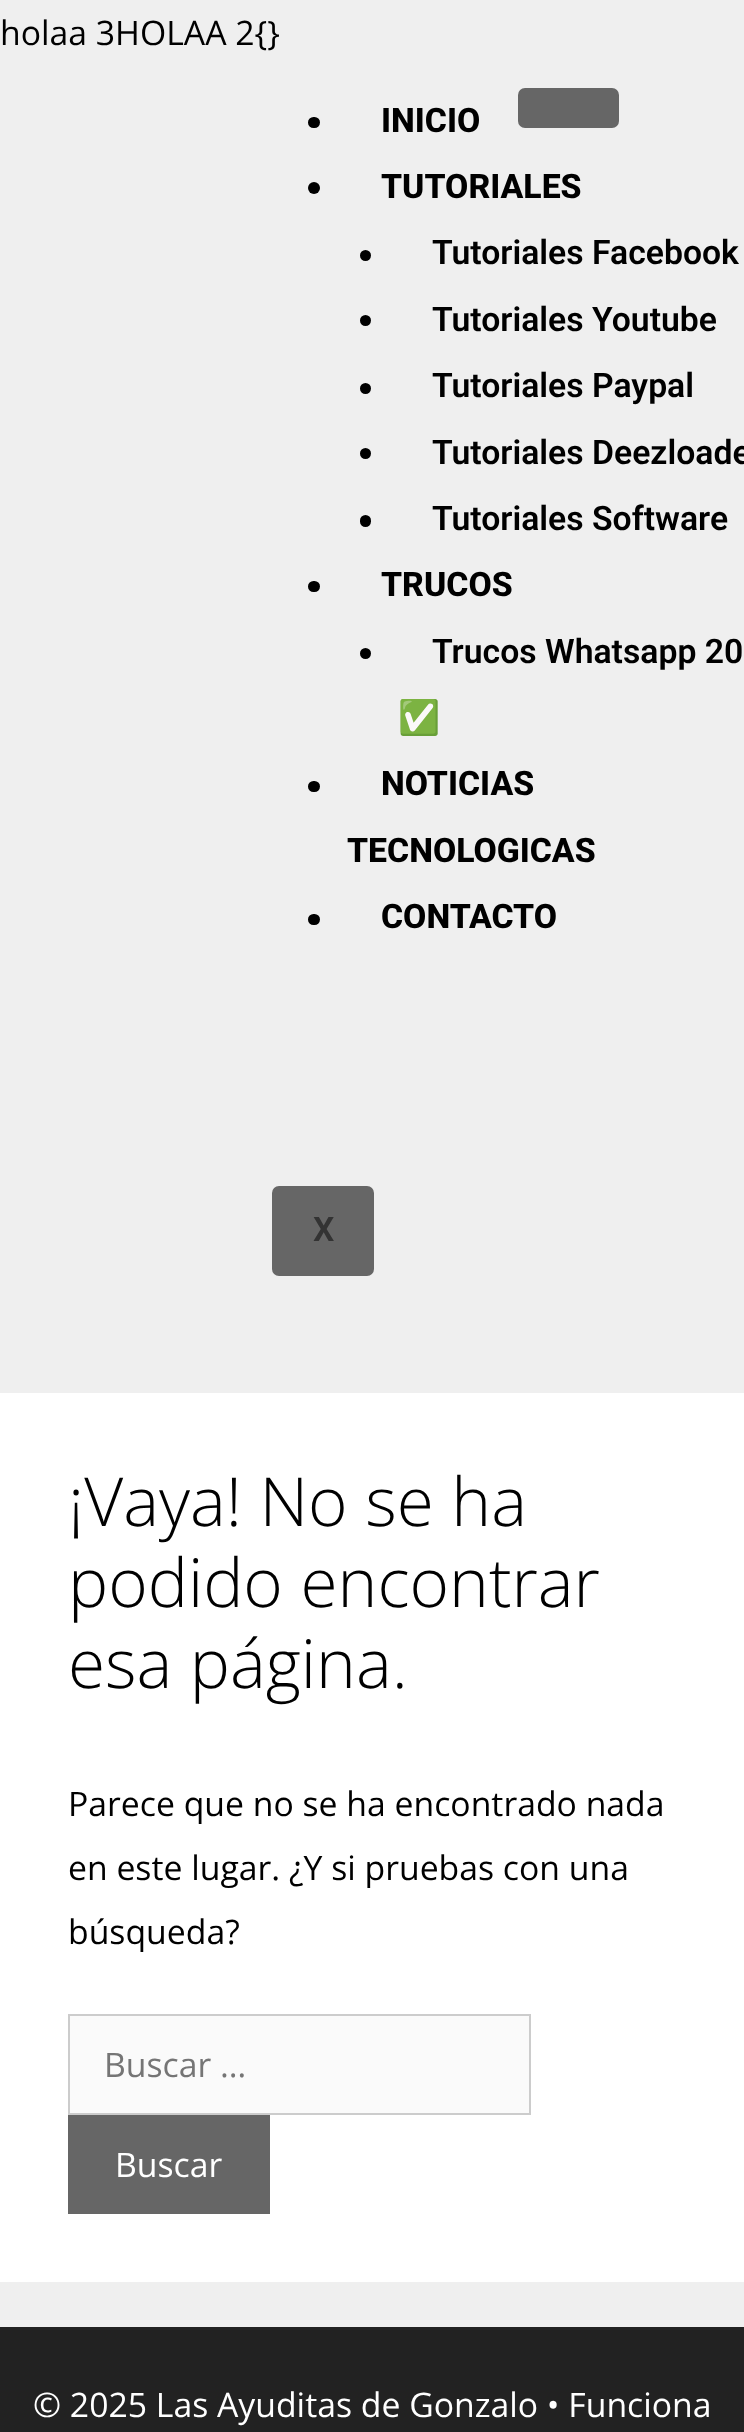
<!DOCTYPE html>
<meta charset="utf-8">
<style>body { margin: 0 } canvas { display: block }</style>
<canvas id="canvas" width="744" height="2432"></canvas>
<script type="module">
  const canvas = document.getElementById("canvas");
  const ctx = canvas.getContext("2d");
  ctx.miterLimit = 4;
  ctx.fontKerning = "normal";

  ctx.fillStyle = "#efefef";
  ctx.fillRect(0, 0, 744, 2432);
  ctx.font = "33.75px Open Sans";
  ctx.fillStyle = "#000000";
  ctx.fillText("holaa 3HOLAA 2{}", 0, 45);
  ctx.fillStyle = "#666666";
  ctx.beginPath();
  ctx.roundRect(518, 88, 101, 40, 7);
  ctx.fill();
  ctx.fillStyle = "#000000";
  ctx.beginPath();
  ctx.roundRect(308, 117, 12, 11, 5.5);
  ctx.fill();
  ctx.font = "800 33.75px Roboto";
  ctx.fillText("INICIO", 381, 132);
  ctx.beginPath();
  ctx.arc(314, 188, 6, 0, Math.PI * 2);
  ctx.fill();
  ctx.fillText("TUTORIALES", 381, 198);
  ctx.beginPath();
  ctx.arc(365.5, 255.5, 5.5, 0, Math.PI * 2);
  ctx.fill();
  ctx.font = "600 33.75px Roboto";
  ctx.fillText("Tutoriales Facebook", 432, 264);
  ctx.beginPath();
  ctx.arc(365.5, 320.5, 5.5, 0, Math.PI * 2);
  ctx.fill();
  ctx.fillText("Tutoriales Youtube", 432, 331);
  ctx.beginPath();
  ctx.arc(365.5, 388.5, 5.5, 0, Math.PI * 2);
  ctx.fill();
  ctx.fillText("Tutoriales Paypal", 432, 397);
  ctx.beginPath();
  ctx.arc(365.5, 453.5, 5.5, 0, Math.PI * 2);
  ctx.fill();
  ctx.fillText("Tutoriales Deezloade", 432, 464);
  ctx.beginPath();
  ctx.roundRect(360, 515, 11, 12, 5.5);
  ctx.fill();
  ctx.fillText("Tutoriales Software", 432, 530);
  ctx.beginPath();
  ctx.roundRect(308, 581, 12, 11, 5.5);
  ctx.fill();
  ctx.font = "800 33.75px Roboto";
  ctx.fillText("TRUCOS", 381, 596);
  ctx.beginPath();
  ctx.arc(365.5, 653.5, 5.5, 0, Math.PI * 2);
  ctx.fill();
  ctx.font = "600 33.75px Roboto";
  ctx.fillText("Trucos Whatsapp 20", 432, 663);
  ctx.font = "bold 33.75px Noto Color Emoji";
  ctx.fillText("✅", 398, 729);
  ctx.beginPath();
  ctx.roundRect(308, 781, 12, 11, 5.5);
  ctx.fill();
  ctx.font = "800 33.75px Roboto";
  ctx.fillText("NOTICIAS", 381, 795);
  ctx.fillText("TECNOLOGICAS", 347, 862);
  ctx.beginPath();
  ctx.roundRect(308, 914, 12, 11, 5.5);
  ctx.fill();
  ctx.fillText("CONTACTO", 381, 928);
  ctx.fillStyle = "#666666";
  ctx.beginPath();
  ctx.roundRect(272, 1186, 102, 90, 7);
  ctx.fill();
  ctx.font = "600 33.75px Roboto";
  ctx.fillStyle = "#333333";
  ctx.fillText("X", 313, 1241);
  ctx.fillStyle = "#ffffff";
  ctx.fillRect(0, 1393, 744, 889);
  ctx.font = "300 67.5px Open Sans";
  ctx.fillStyle = "#000000";
  ctx.fillText("¡Vaya! No se ha", 68, 1526);
  ctx.fillText("podido encontrar", 68, 1607);
  ctx.fillText("esa página.", 68, 1688);
  ctx.font = "33.75px Open Sans";
  ctx.fillText("Parece que no se ha encontrado nada", 68, 1816);
  ctx.fillText("en este lugar. ¿Y si pruebas con una", 68, 1880);
  ctx.fillText("búsqueda?", 68, 1944);
  ctx.fillStyle = "#fafafa";
  ctx.beginPath();
  ctx.rect(69, 2015, 461, 99);
  ctx.fill();
  ctx.strokeStyle = "#cccccc";
  ctx.lineWidth = 2;
  ctx.stroke();
  ctx.fillStyle = "#757575";
  ctx.fillText("Buscar …", 104, 2077);
  ctx.fillStyle = "#666666";
  ctx.fillRect(68, 2115, 202, 99);
  ctx.fillStyle = "#ffffff";
  ctx.fillText("Buscar", 115, 2177);
  ctx.fillStyle = "#222222";
  ctx.fillRect(0, 2327, 744, 105);
  ctx.fillStyle = "#ffffff";
  ctx.fillText("© 2025 Las Ayuditas de Gonzalo • Funciona", 33, 2417);
</script>
